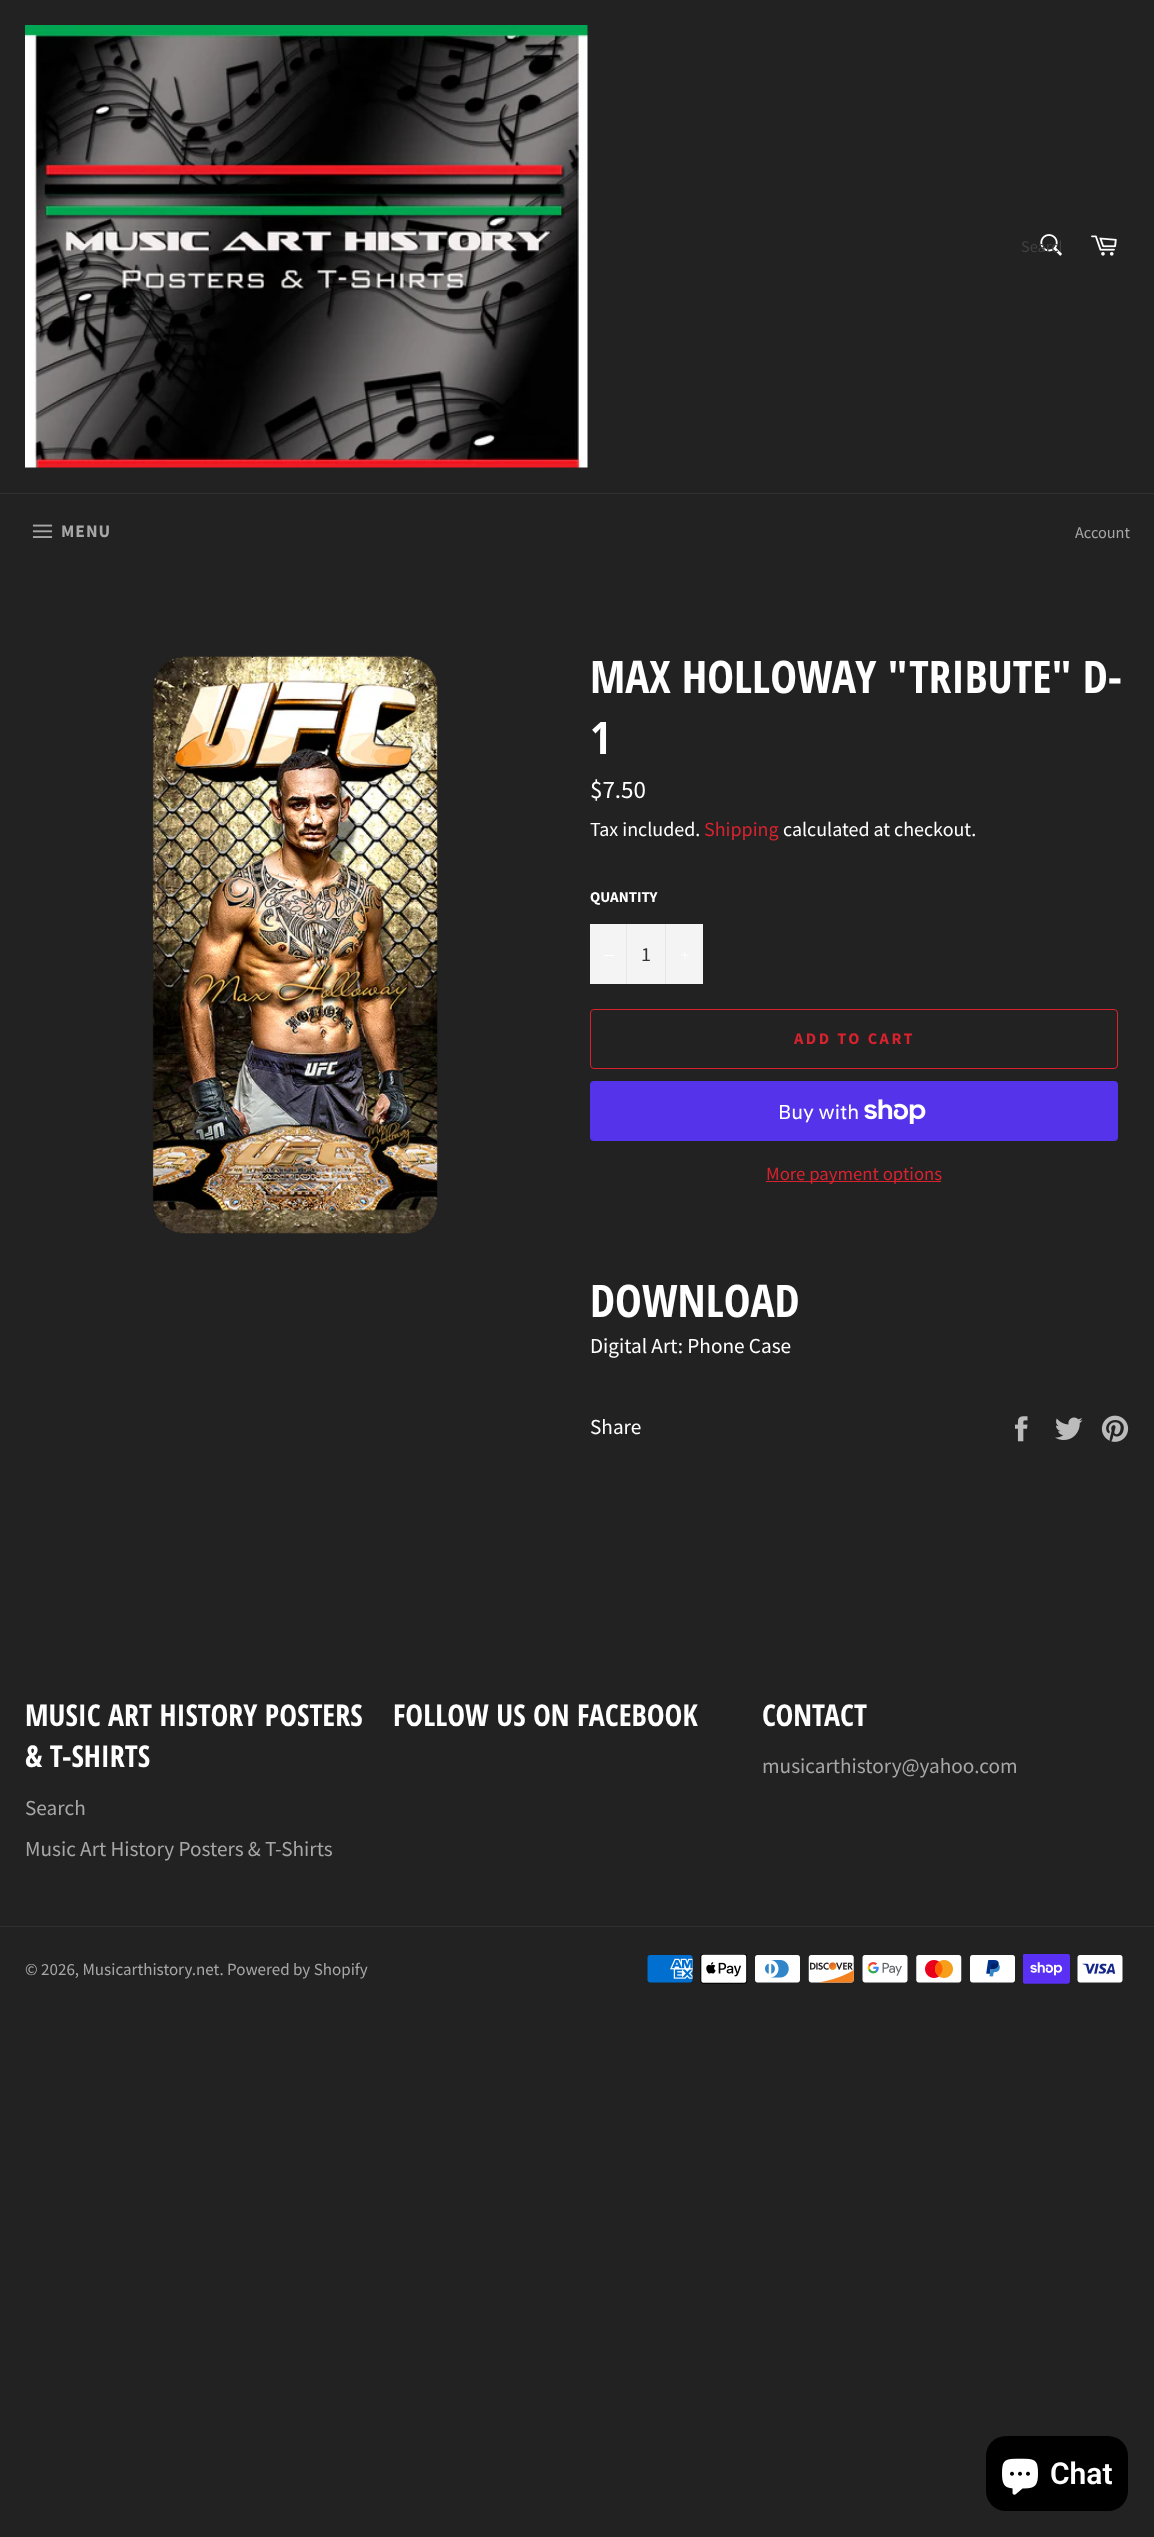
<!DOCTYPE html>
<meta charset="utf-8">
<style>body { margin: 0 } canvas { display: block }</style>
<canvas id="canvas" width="1154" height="2537"></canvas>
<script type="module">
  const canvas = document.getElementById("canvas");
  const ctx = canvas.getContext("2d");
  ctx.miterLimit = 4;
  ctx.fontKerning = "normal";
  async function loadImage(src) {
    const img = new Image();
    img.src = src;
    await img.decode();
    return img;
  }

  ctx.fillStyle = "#222222";
  ctx.fillRect(0, 0, 1154, 2537);
  ctx.drawImage(await loadImage("img1.png"), 25, 25, 563, 443);
  ctx.drawImage(await loadImage("img2.png"), 1040, 234, 22, 22);
  ctx.save();
  ctx.beginPath();
  ctx.rect(1021, 236, 40, 22);
  ctx.clip();
  ctx.font = "16.25px Source Sans Pro";
  ctx.fillStyle = "#414141";
  ctx.fillText("Search", 1021, 252);
  ctx.restore();
  ctx.drawImage(await loadImage("img3.png"), 1091, 235, 26, 21);
  ctx.fillStyle = "#2f2f2f";
  ctx.fillRect(0, 493, 1154, 1);
  ctx.drawImage(await loadImage("img4.png"), 32, 524, 21, 14);
  ctx.letterSpacing = "1px";
  ctx.font = "bold 17.5px Source Sans Pro";
  ctx.fillStyle = "#a7a7a7";
  ctx.fillText("MENU", 61, 537);
  ctx.letterSpacing = "0px";
  ctx.font = "16.25px Source Sans Pro";
  ctx.fillText("Account", 1075, 538);
  ctx.drawImage(await loadImage("img5.png"), 152, 655, 287, 579);
  ctx.font = "bold 45px Open Sans Condensed";
  ctx.fillStyle = "#ffffff";
  ctx.fillText("MAX HOLLOWAY \"TRIBUTE\" D-", 590, 693);
  ctx.fillText("1", 590, 754);
  ctx.font = "25px Source Sans Pro";
  ctx.fillText("$7.50", 590, 798);
  ctx.font = "20px Source Sans Pro";
  ctx.fillText("Tax included.", 590, 836);
  ctx.fillStyle = "#d8232f";
  ctx.fillText("Shipping", 704, 836);
  ctx.fillStyle = "#ffffff";
  ctx.fillText("calculated at checkout.", 783, 836);
  ctx.font = "bold 15px Source Sans Pro";
  ctx.fillText("QUANTITY", 590, 902);
  ctx.fillStyle = "#f4f4f4";
  ctx.fillRect(590, 924, 113, 60);
  ctx.fillStyle = "#e7e7e7";
  ctx.fillRect(626, 924, 1, 60);
  ctx.fillStyle = "#ffffff";
  ctx.fillRect(604, 955, 10, 1);
  ctx.font = "20px Source Sans Pro";
  ctx.fillStyle = "#333333";
  ctx.fillText("1", 641, 961);
  ctx.fillStyle = "#e7e7e7";
  ctx.fillRect(665, 924, 1, 60);
  ctx.drawImage(await loadImage("img6.png"), 681, 951, 8, 8);
  ctx.beginPath();
  ctx.roundRect(590.5, 1009.5, 527, 59, 3.5);
  ctx.strokeStyle = "#d8232f";
  ctx.stroke();
  ctx.letterSpacing = "2.5px";
  ctx.font = "bold 16.25px Source Sans Pro";
  ctx.fillStyle = "#d8232f";
  ctx.fillText("ADD TO CART", 794, 1044);
  ctx.fillStyle = "#5433eb";
  ctx.beginPath();
  ctx.roundRect(590, 1081, 528, 60, 4);
  ctx.fill();
  ctx.letterSpacing = "0px";
  ctx.font = "20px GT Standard";
  ctx.fillStyle = "#ffffff";
  ctx.fillText("Buy with", 778, 1119);
  ctx.drawImage(await loadImage("img7.png"), 864, 1099, 62, 25);
  ctx.fillStyle = "#d8232f";
  ctx.fillRect(766, 1181, 175, 1);
  ctx.font = "18.75px Source Sans Pro";
  ctx.fillText("More payment options", 766, 1180);
  ctx.font = "bold 45px Open Sans Condensed";
  ctx.fillStyle = "#ffffff";
  ctx.fillText("DOWNLOAD", 590, 1317);
  ctx.font = "21.25px Source Sans Pro";
  ctx.fillText("Digital Art: Phone Case", 590, 1353);
  ctx.fillText("Share", 590, 1434);
  ctx.drawImage(await loadImage("img8.png"), 1015, 1416, 13, 26);
  ctx.drawImage(await loadImage("img9.png"), 1055, 1417, 28, 23);
  ctx.drawImage(await loadImage("img10.png"), 1101, 1415, 28, 27);
  ctx.font = "bold 30px Open Sans Condensed";
  ctx.fillText("MUSIC ART HISTORY POSTERS", 25, 1726);
  ctx.fillText("& T-SHIRTS", 25, 1767);
  ctx.font = "21.25px Source Sans Pro";
  ctx.fillStyle = "#a7a7a7";
  ctx.fillText("Search", 25, 1815);
  ctx.fillText("Music Art History Posters & T-Shirts", 25, 1856);
  ctx.font = "bold 30px Open Sans Condensed";
  ctx.fillStyle = "#ffffff";
  ctx.fillText("FOLLOW US ON FACEBOOK", 393, 1726);
  ctx.fillText("CONTACT", 762, 1726);
  ctx.font = "21.25px Source Sans Pro";
  ctx.fillStyle = "#a7a7a7";
  ctx.fillText("musicarthistory@yahoo.com", 762, 1773);
  ctx.fillStyle = "#2f2f2f";
  ctx.fillRect(0, 1926, 1154, 1);
  ctx.font = "17px Source Sans Pro";
  ctx.fillStyle = "#a7a7a7";
  ctx.fillText("© 2026, Musicarthistory.net. Powered by Shopify", 25, 1975);
  ctx.drawImage(await loadImage("img11.png"), 647, 1955, 46, 28);
  ctx.drawImage(await loadImage("img12.png"), 700, 1954, 48, 30);
  ctx.drawImage(await loadImage("img13.png"), 755, 1955, 45, 28);
  ctx.drawImage(await loadImage("img14.png"), 808, 1955, 46, 28);
  ctx.drawImage(await loadImage("img15.png"), 862, 1955, 46, 28);
  ctx.drawImage(await loadImage("img16.png"), 916, 1955, 46, 28);
  ctx.drawImage(await loadImage("img17.png"), 970, 1955, 45, 28);
  ctx.drawImage(await loadImage("img18.png"), 1023, 1954, 47, 30);
  ctx.drawImage(await loadImage("img19.png"), 1077, 1955, 46, 28);
  ctx.fillStyle = "#000000";
  ctx.beginPath();
  ctx.roundRect(986, 2436, 142, 75, 20);
  ctx.fill();
  ctx.drawImage(await loadImage("img20.png"), 1002, 2458, 36, 37);
  ctx.font = "600 30px Roboto";
  ctx.fillStyle = "#ffffff";
  ctx.fillText("Chat", 1050, 2484);
</script>
